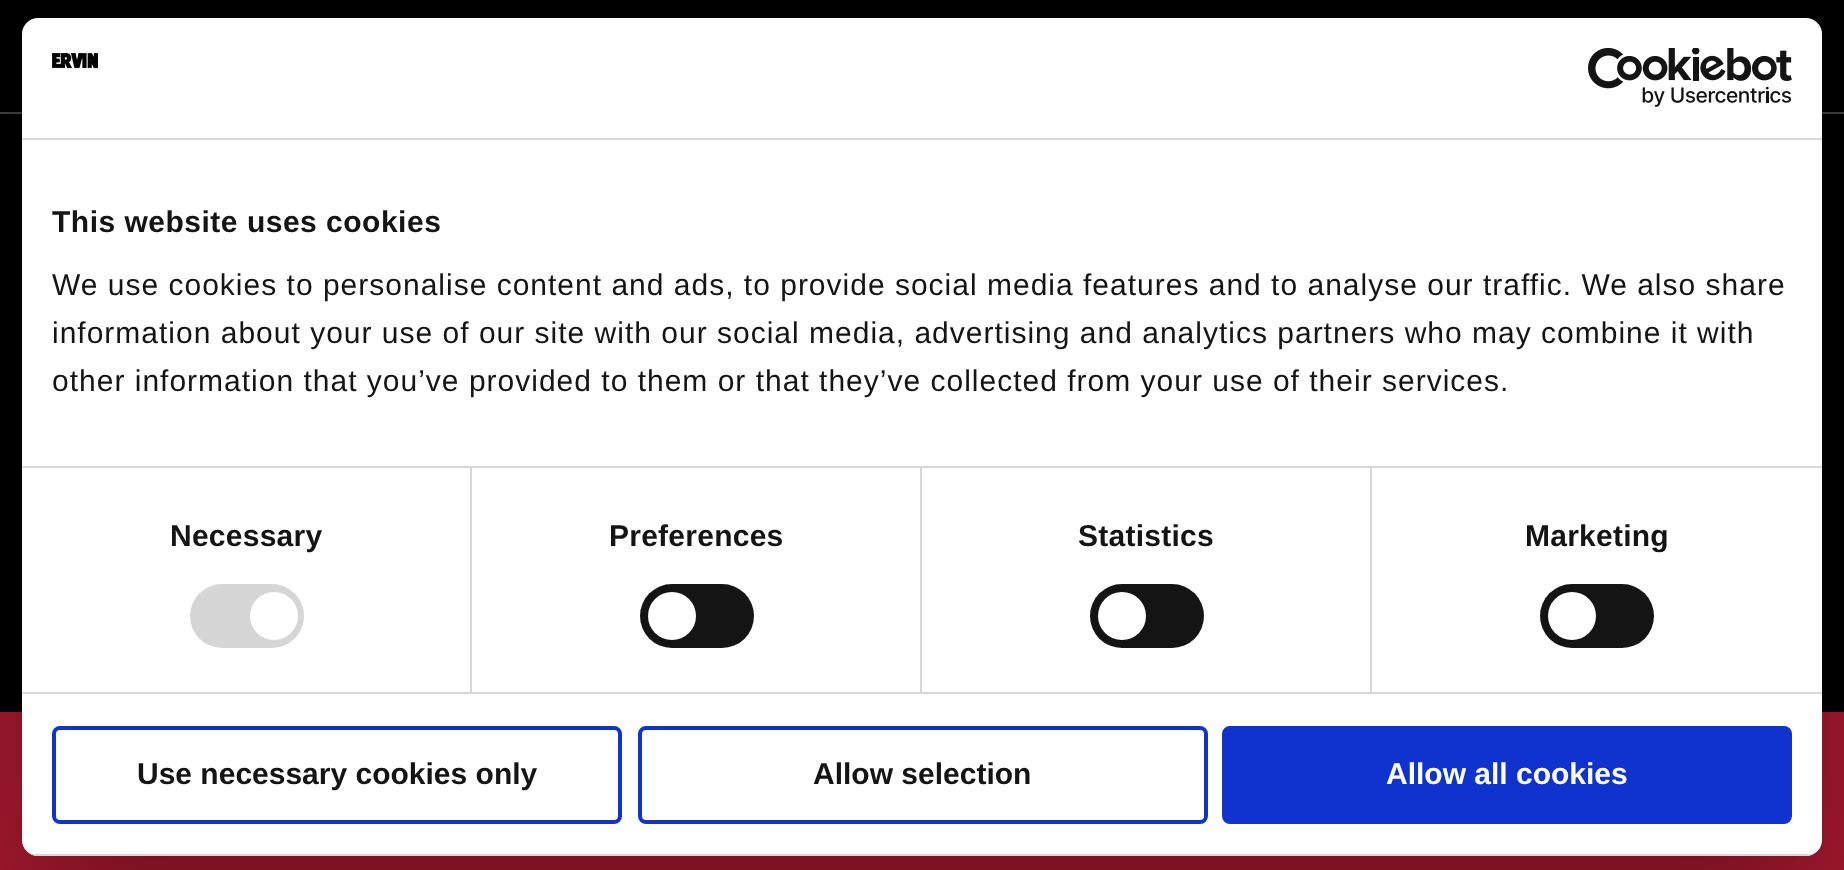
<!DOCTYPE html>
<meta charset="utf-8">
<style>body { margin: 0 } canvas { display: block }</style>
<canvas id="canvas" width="1844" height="870"></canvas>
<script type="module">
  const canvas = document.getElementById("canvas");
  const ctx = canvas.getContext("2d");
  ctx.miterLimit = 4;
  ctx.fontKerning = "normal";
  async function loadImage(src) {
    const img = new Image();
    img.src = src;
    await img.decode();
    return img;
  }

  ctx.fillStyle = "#000000";
  ctx.fillRect(0, 0, 1844, 870);
  ctx.fillStyle = "#404040";
  ctx.fillRect(0, 112, 1844, 2);
  ctx.fillStyle = "#a6192e";
  ctx.fillRect(0, 712, 1844, 158);
  ctx.fillStyle = "rgba(0, 0, 0, 0.3)";
  ctx.filter = "blur(68px)";
  ctx.beginPath();
  ctx.roundRect(22, 82, 1800, 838, 16);
  ctx.fill();
  ctx.filter = "none";
  ctx.fillStyle = "#ffffff";
  ctx.beginPath();
  ctx.roundRect(22, 18, 1800, 838, 16);
  ctx.fill();
  ctx.fillStyle = "#d6d6d6";
  ctx.fillRect(22, 138, 1800, 2);
  ctx.drawImage(await loadImage("img1.png"), 52, 53, 46, 16);
  ctx.drawImage(await loadImage("img2.png"), 1588, 48, 204, 59);
  ctx.fillRect(22, 466, 1800, 2);
  ctx.letterSpacing = "0.5px";
  ctx.font = "bold 30px Liberation Sans";
  ctx.fillStyle = "#141414";
  ctx.fillText("This website uses cookies", 52, 232);
  ctx.letterSpacing = "1px";
  ctx.font = "30px Liberation Sans";
  ctx.fillText("We use cookies to personalise content and ads, to provide social media features and to analyse our traffic. We also share", 52, 295);
  ctx.fillText("information about your use of our site with our social media, advertising and analytics partners who may combine it with", 52, 343);
  ctx.fillText("other information that you’ve provided to them or that they’ve collected from your use of their services.", 52, 391);
  ctx.fillStyle = "#d6d6d6";
  ctx.fillRect(22, 692, 1800, 2);
  ctx.fillRect(470, 468, 2, 224);
  ctx.letterSpacing = "0.25px";
  ctx.font = "bold 30px Liberation Sans";
  ctx.fillStyle = "#141414";
  ctx.fillText("Necessary", 170, 546);
  ctx.fillStyle = "#d6d6d6";
  ctx.beginPath();
  ctx.roundRect(190, 584, 114, 64, 32);
  ctx.fill();
  ctx.fillStyle = "#ffffff";
  ctx.beginPath();
  ctx.arc(274, 616, 24, 0, Math.PI * 2);
  ctx.fill();
  ctx.fillStyle = "#d6d6d6";
  ctx.fillRect(920, 468, 2, 224);
  ctx.fillStyle = "#141414";
  ctx.fillText("Preferences", 609, 546);
  ctx.beginPath();
  ctx.roundRect(640, 584, 114, 64, 32);
  ctx.fill();
  ctx.fillStyle = "#ffffff";
  ctx.beginPath();
  ctx.arc(672, 616, 24, 0, Math.PI * 2);
  ctx.fill();
  ctx.fillStyle = "#d6d6d6";
  ctx.fillRect(1370, 468, 2, 224);
  ctx.fillStyle = "#141414";
  ctx.fillText("Statistics", 1078, 546);
  ctx.beginPath();
  ctx.roundRect(1090, 584, 114, 64, 32);
  ctx.fill();
  ctx.fillStyle = "#ffffff";
  ctx.beginPath();
  ctx.arc(1122, 616, 24, 0, Math.PI * 2);
  ctx.fill();
  ctx.fillStyle = "#141414";
  ctx.fillText("Marketing", 1525, 546);
  ctx.beginPath();
  ctx.roundRect(1540, 584, 114, 64, 32);
  ctx.fill();
  ctx.fillStyle = "#ffffff";
  ctx.beginPath();
  ctx.arc(1572, 616, 24, 0, Math.PI * 2);
  ctx.fill();
  ctx.save();
  ctx.beginPath();
  ctx.roundRect(22, 18, 1800, 838, 16);
  ctx.clip();
  ctx.fillStyle = "#d6d6d6";
  ctx.fillRect(22, 854, 1800, 2);
  ctx.restore();
  ctx.beginPath();
  ctx.roundRect(54, 728, 566, 94, 6);
  ctx.strokeStyle = "#1032cf";
  ctx.lineWidth = 4;
  ctx.stroke();
  ctx.letterSpacing = "0px";
  ctx.fillStyle = "#141414";
  ctx.fillText("Use necessary cookies only", 137, 784);
  ctx.beginPath();
  ctx.roundRect(640, 728, 566, 94, 6);
  ctx.stroke();
  ctx.fillText("Allow selection", 813, 784);
  ctx.fillStyle = "#1032cf";
  ctx.beginPath();
  ctx.roundRect(1224, 728, 566, 94, 6);
  ctx.fill();
  ctx.stroke();
  ctx.fillStyle = "#ffffff";
  ctx.fillText("Allow all cookies", 1386, 784);
</script>
